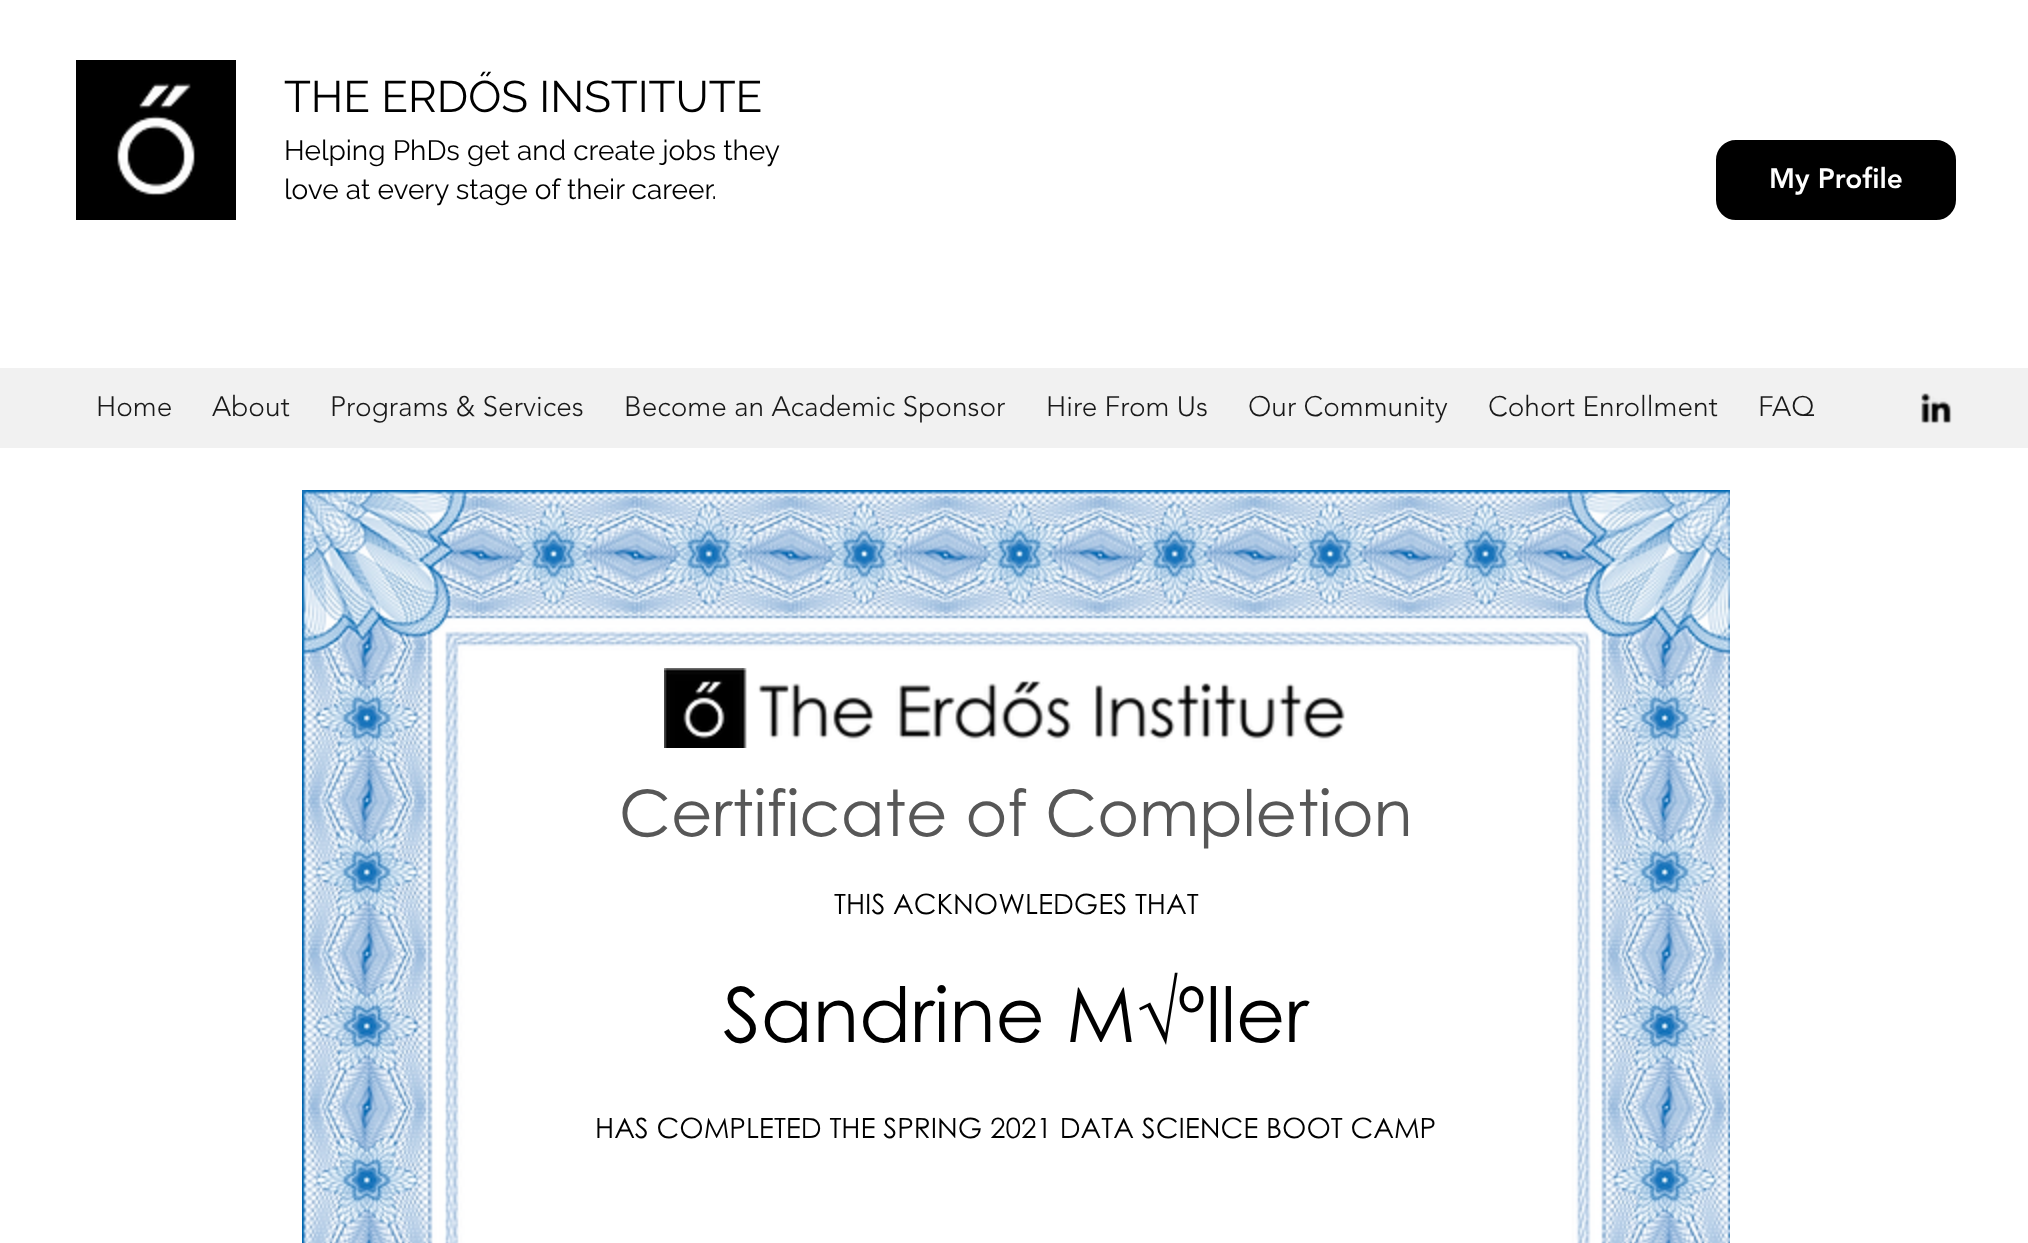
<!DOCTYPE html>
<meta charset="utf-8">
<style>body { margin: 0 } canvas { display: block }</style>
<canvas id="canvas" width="2028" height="1243"></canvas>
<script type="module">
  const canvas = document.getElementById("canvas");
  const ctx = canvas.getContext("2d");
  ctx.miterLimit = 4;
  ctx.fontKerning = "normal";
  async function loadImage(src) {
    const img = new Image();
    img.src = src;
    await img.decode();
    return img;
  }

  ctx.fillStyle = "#ffffff";
  ctx.fillRect(0, 0, 2028, 1243);
  ctx.drawImage(await loadImage("img1.png"), 76, 60, 160, 160);
  ctx.font = "44px Raleway";
  ctx.fillStyle = "#000000";
  ctx.fillText("THE ERDŐS INSTITUTE", 284, 112);
  ctx.font = "28px Raleway";
  ctx.fillText("Helping PhDs get and create jobs they", 284, 160);
  ctx.fillText("love at every stage of their career.", 284, 199);
  ctx.beginPath();
  ctx.roundRect(1717, 141, 238, 78, 19);
  ctx.fill();
  ctx.strokeStyle = "#000000";
  ctx.lineWidth = 2;
  ctx.stroke();
  ctx.font = "900 28px 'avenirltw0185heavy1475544'";
  ctx.fillStyle = "#ffffff";
  ctx.fillText("My Profile", 1769, 188);
  ctx.fillStyle = "#f1f1f1";
  ctx.fillRect(0, 368, 2028, 80);
  ctx.font = "300 28px 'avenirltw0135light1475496'";
  ctx.fillStyle = "#191919";
  ctx.fillText("Home", 96, 416);
  ctx.fillText("About", 212, 416);
  ctx.fillText("Programs & Services", 330, 416);
  ctx.fillText("Become an Academic Sponsor", 624, 416);
  ctx.fillText("Hire From Us", 1046, 416);
  ctx.fillText("Our Community", 1248, 416);
  ctx.fillText("Cohort Enrollment", 1488, 416);
  ctx.fillText("FAQ", 1758, 416);
  ctx.drawImage(await loadImage("img2.png"), 1921, 393, 31, 31);
  ctx.drawImage(await loadImage("img3.png"), 302, 490, 1428, 753);
  ctx.drawImage(await loadImage("img4.png"), 664, 668, 681, 80);
  ctx.font = "64px Century Gothic";
  ctx.fillStyle = "#575757";
  ctx.fillText("Certificate of Completion", 619, 836);
  ctx.font = "28px Century Gothic";
  ctx.fillStyle = "#000000";
  ctx.fillText("THIS ACKNOWLEDGES THAT", 834, 914);
  ctx.font = "76px Century Gothic";
  ctx.fillText("Sandrine M√ºller", 723, 1042);
  ctx.font = "28px Century Gothic";
  ctx.fillText("HAS COMPLETED THE SPRING 2021 DATA SCIENCE BOOT CAMP", 595, 1138);
</script>
